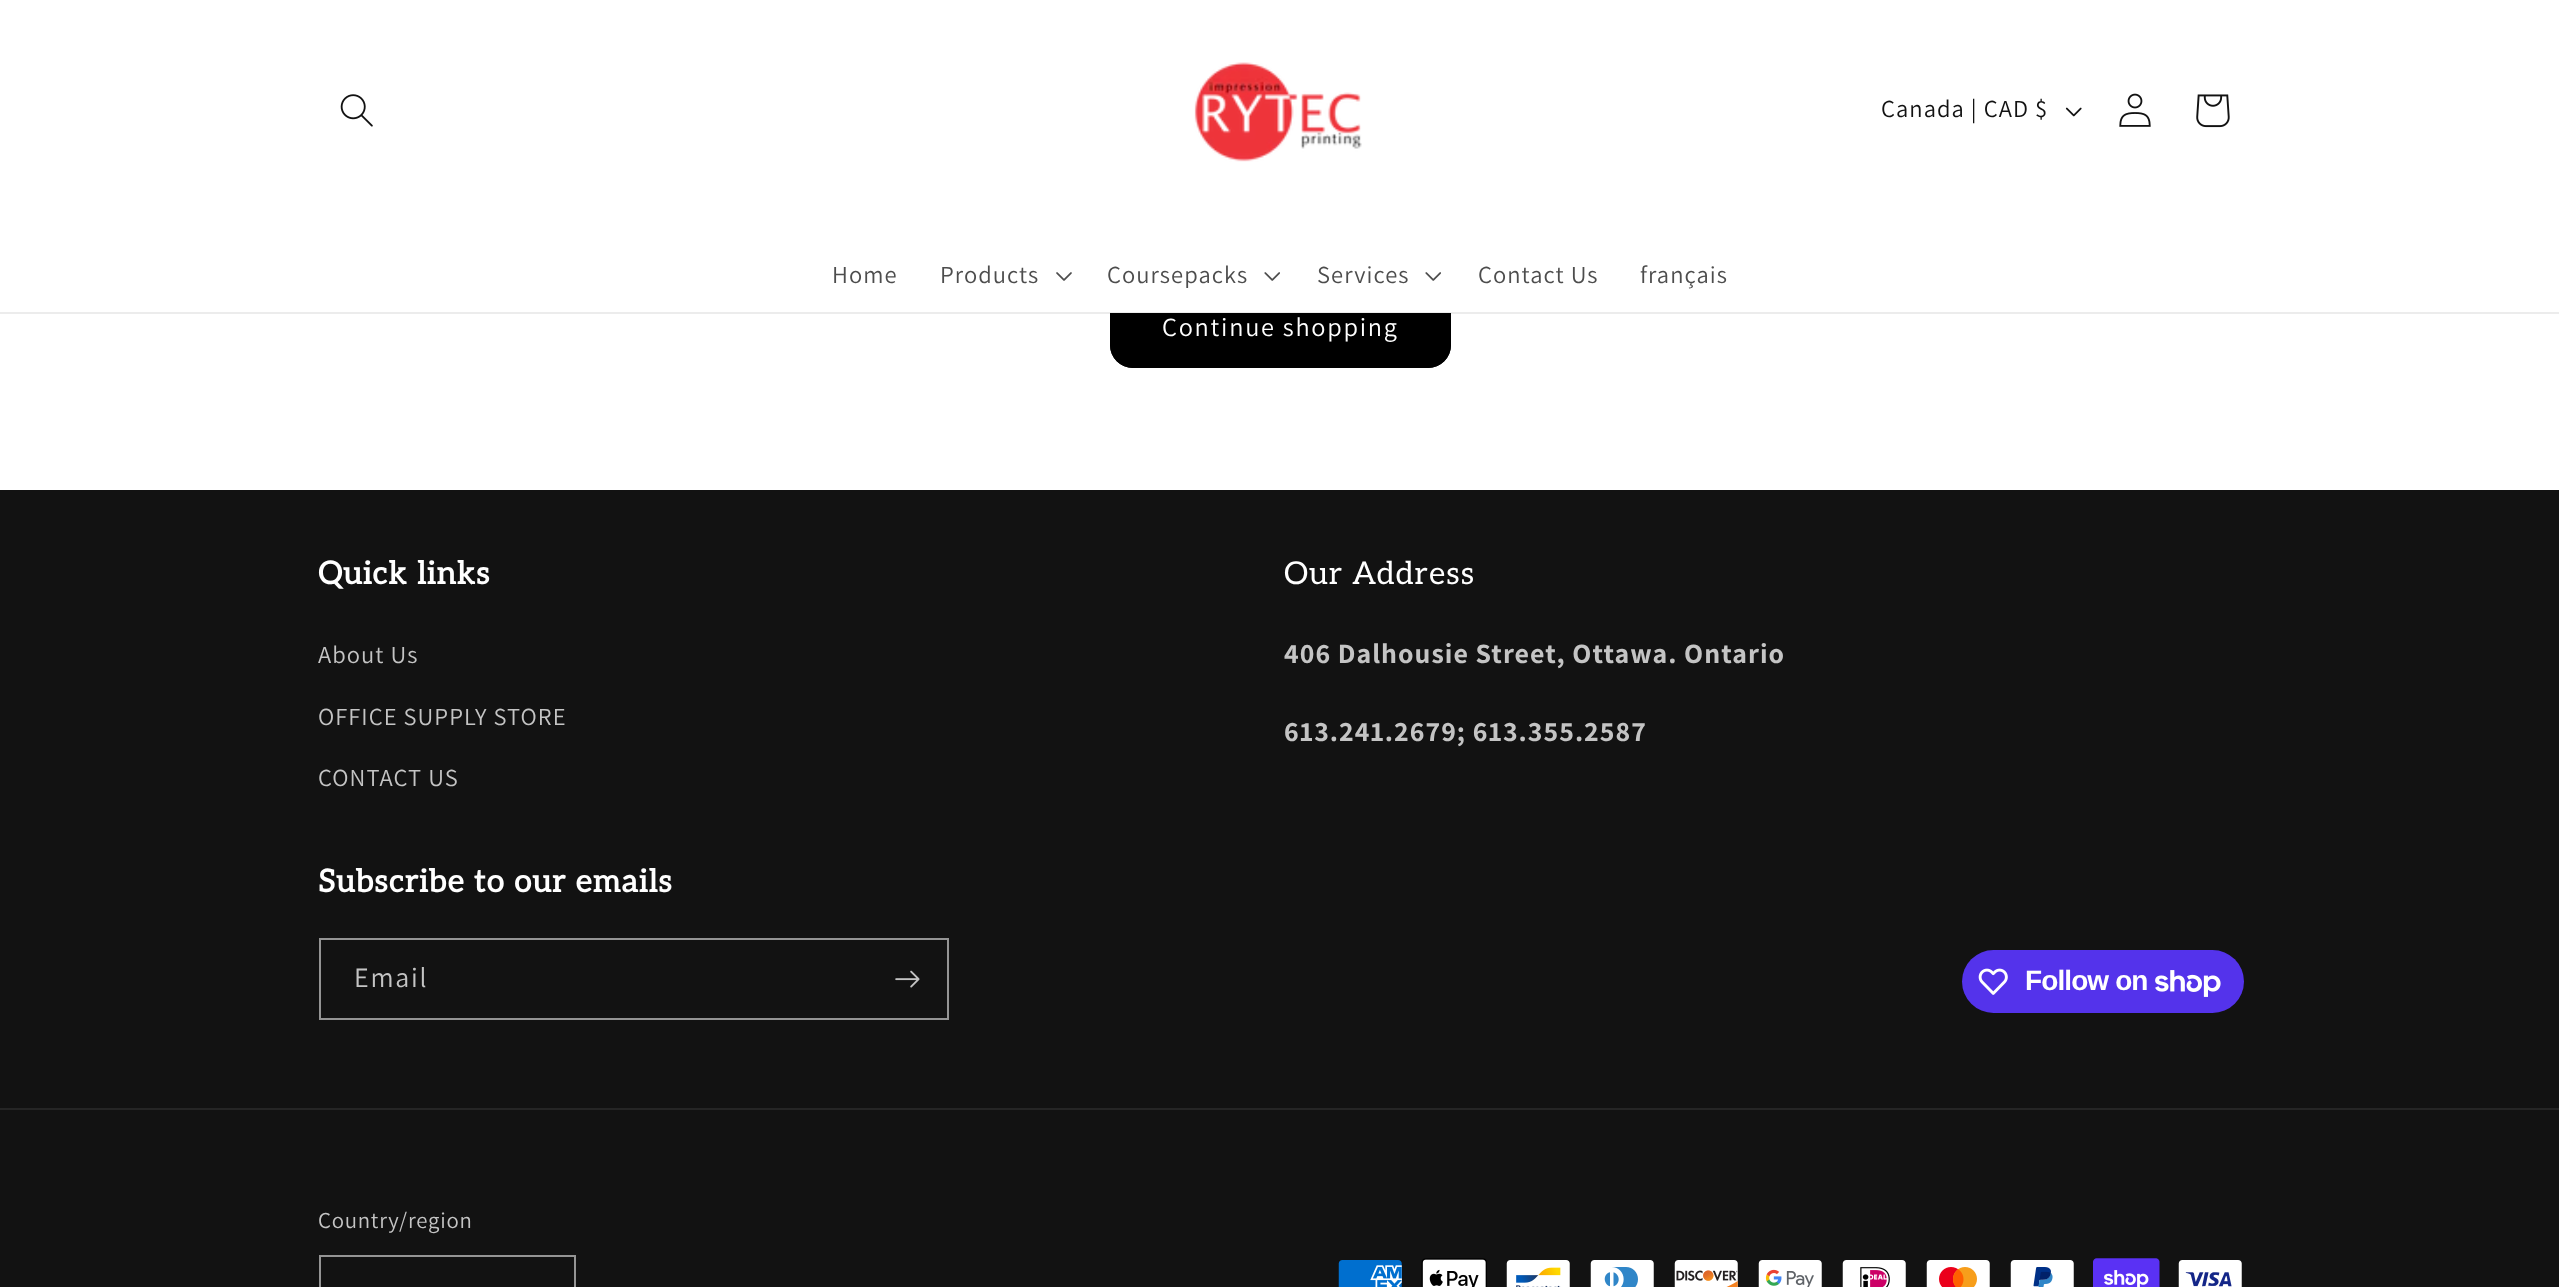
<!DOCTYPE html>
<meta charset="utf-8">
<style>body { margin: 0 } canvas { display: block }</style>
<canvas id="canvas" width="2559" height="1287"></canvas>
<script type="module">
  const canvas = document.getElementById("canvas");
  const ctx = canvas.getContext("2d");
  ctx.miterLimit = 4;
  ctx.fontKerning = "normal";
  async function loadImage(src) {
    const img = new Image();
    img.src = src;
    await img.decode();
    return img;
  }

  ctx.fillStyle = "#ffffff";
  ctx.fillRect(0, 0, 2559, 1287);
  ctx.fillStyle = "#000000";
  ctx.beginPath();
  ctx.roundRect(1110, 285, 341, 83, 23);
  ctx.fill();
  ctx.beginPath();
  ctx.roundRect(1111, 286, 339, 81, 22);
  ctx.strokeStyle = "#000000";
  ctx.lineWidth = 2;
  ctx.stroke();
  ctx.fillStyle = "#ffffff";
  ctx.fillRect(1110, 285, 341, 28);
  ctx.fillStyle = "rgba(18, 18, 18, 0.08)";
  ctx.fillRect(0, 312, 2559, 2);
  ctx.drawImage(await loadImage("img1.png"), 340, 94, 33, 33);
  ctx.drawImage(await loadImage("img2.png"), 1194, 62, 168, 100);
  ctx.letterSpacing = "1.05px";
  ctx.font = "24.5px Assistant";
  ctx.fillStyle = "#121212";
  ctx.fillText("Canada | CAD $", 1881, 117);
  ctx.drawImage(await loadImage("img3.png"), 2065, 107, 17, 10);
  ctx.drawImage(await loadImage("img4.png"), 2119, 93, 32, 34);
  ctx.drawImage(await loadImage("img5.png"), 2196, 94, 34, 34);
  ctx.fillStyle = "#4d4d4d";
  ctx.fillText("Home", 832, 283);
  ctx.fillText("Products", 940, 283);
  ctx.drawImage(await loadImage("img6.png"), 1056, 272, 16, 9);
  ctx.fillText("Coursepacks", 1107, 283);
  ctx.drawImage(await loadImage("img7.png"), 1264, 272, 16, 9);
  ctx.fillText("Services", 1317, 283);
  ctx.drawImage(await loadImage("img7.png"), 1425, 272, 16, 9);
  ctx.fillText("Contact Us", 1478, 283);
  ctx.fillText("français", 1640, 283);
  ctx.letterSpacing = "1.75px";
  ctx.font = "26.25px Assistant";
  ctx.fillStyle = "#ffffff";
  ctx.fillText("Continue shopping", 1162, 336);
  ctx.fillStyle = "#121212";
  ctx.fillRect(0, 490, 2559, 797);
  ctx.letterSpacing = "1.05px";
  ctx.font = "bold 31.5px Aleo";
  ctx.fillStyle = "#ffffff";
  ctx.fillText("Quick links", 318, 584);
  ctx.font = "24.5px Assistant";
  ctx.fillStyle = "#c4c4c4";
  ctx.fillText("About Us", 318, 663);
  ctx.fillText("OFFICE SUPPLY STORE", 318, 725);
  ctx.fillText("CONTACT US", 318, 786);
  ctx.font = "31.5px Aleo";
  ctx.fillStyle = "#ffffff";
  ctx.fillText("Our Address", 1284, 584);
  ctx.font = "bold 28px Assistant";
  ctx.fillStyle = "#c4c4c4";
  ctx.fillText("406 Dalhousie Street, Ottawa. Ontario", 1284, 663);
  ctx.fillText("613.241.2679; 613.355.2587", 1284, 741);
  ctx.font = "bold 31.5px Aleo";
  ctx.fillStyle = "#ffffff";
  ctx.fillText("Subscribe to our emails", 318, 892);
  ctx.strokeStyle = "#949494";
  ctx.strokeRect(320, 939, 628, 80);
  ctx.letterSpacing = "1.75px";
  ctx.font = "28px Assistant";
  ctx.fillStyle = "#c4c4c4";
  ctx.fillText("Email", 354, 987);
  ctx.drawImage(await loadImage("img8.png"), 895, 970, 25, 18);
  ctx.fillStyle = "#5433eb";
  ctx.beginPath();
  ctx.roundRect(1962, 950, 282, 63, 31.5);
  ctx.fill();
  ctx.drawImage(await loadImage("img9.png"), 1978, 968, 30, 27);
  ctx.letterSpacing = "-0.9px";
  ctx.font = "bold 28px Liberation Sans";
  ctx.fillStyle = "#ffffff";
  ctx.fillText("Follow on", 2025, 990);
  ctx.drawImage(await loadImage("img10.png"), 2155, 970, 66, 27);
  ctx.fillStyle = "#252525";
  ctx.fillRect(0, 1108, 2559, 2);
  ctx.letterSpacing = "0.75px";
  ctx.font = "22.75px Assistant";
  ctx.fillStyle = "#c4c4c4";
  ctx.fillText("Country/region", 318, 1228);
  ctx.strokeRect(320, 1256, 255, 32);
  ctx.drawImage(await loadImage("img11.png"), 1338, 1260, 64, 27);
  ctx.drawImage(await loadImage("img12.png"), 1421, 1258, 66, 29);
  ctx.drawImage(await loadImage("img13.png"), 1506, 1260, 64, 27);
  ctx.drawImage(await loadImage("img14.png"), 1590, 1260, 64, 27);
  ctx.drawImage(await loadImage("img15.png"), 1674, 1260, 64, 27);
  ctx.drawImage(await loadImage("img16.png"), 1758, 1260, 64, 27);
  ctx.drawImage(await loadImage("img17.png"), 1842, 1260, 64, 27);
  ctx.drawImage(await loadImage("img18.png"), 1926, 1260, 64, 27);
  ctx.drawImage(await loadImage("img19.png"), 2010, 1260, 64, 27);
  ctx.drawImage(await loadImage("img20.png"), 2093, 1258, 67, 29);
  ctx.drawImage(await loadImage("img21.png"), 2178, 1260, 64, 27);
</script>
